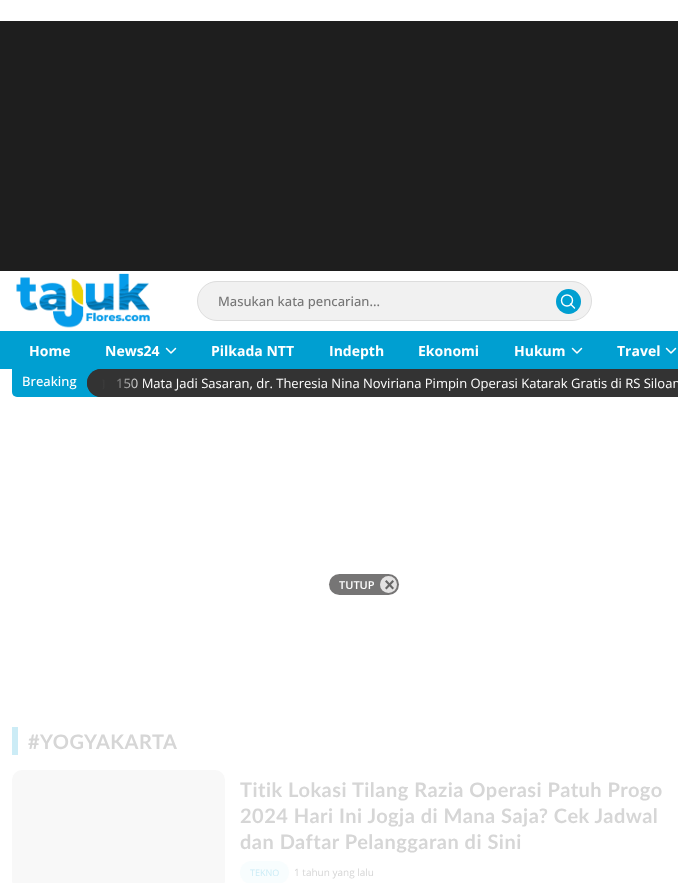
<!DOCTYPE html>
<meta charset="utf-8">
<style>body { margin: 0 } canvas { display: block }</style>
<canvas id="canvas" width="678" height="883"></canvas>
<script type="module">
  const canvas = document.getElementById("canvas");
  const ctx = canvas.getContext("2d");
  ctx.miterLimit = 4;
  ctx.fontKerning = "normal";
  async function loadImage(src) {
    const img = new Image();
    img.src = src;
    await img.decode();
    return img;
  }
  let gradient;

  ctx.fillStyle = "#ffffff";
  ctx.fillRect(0, 0, 678, 883);
  ctx.fillStyle = "#1e1e1e";
  ctx.fillRect(0, 21, 678, 250);
  ctx.drawImage(await loadImage("img1.png"), 16, 273, 134, 55);
  ctx.fillStyle = "#f1f1f1";
  ctx.beginPath();
  ctx.roundRect(197.5, 281.5, 394, 39, 19.5);
  ctx.fill();
  ctx.strokeStyle = "#dddddd";
  ctx.stroke();
  ctx.font = "500 13px Open Sans";
  ctx.fillStyle = "#757575";
  ctx.fillText("Masukan kata pencarian...", 218, 306);
  ctx.fillStyle = "#009fd1";
  ctx.beginPath();
  ctx.arc(568.5, 301.5, 12.5, 0, Math.PI * 2);
  ctx.fill();
  ctx.beginPath();
  ctx.arc(567, 300.5, 5.5, 0, Math.PI * 2);
  ctx.strokeStyle = "#ffffff";
  ctx.lineWidth = 1.4;
  ctx.stroke();
  ctx.beginPath();
  ctx.moveTo(574.5, 308);
  ctx.lineTo(570.5, 304);
  ctx.lineCap = "round";
  ctx.lineJoin = "round";
  ctx.stroke();
  ctx.fillRect(0, 331, 678, 38);
  ctx.font = "bold 14px Open Sans";
  ctx.fillStyle = "#ffffff";
  ctx.fillText("Home", 29, 356);
  ctx.fillText("News24", 105, 356);
  ctx.drawImage(await loadImage("img2.png"), 165, 347, 12, 7);
  ctx.fillText("Pilkada NTT", 211, 356);
  ctx.fillText("Indepth", 329, 356);
  ctx.fillText("Ekonomi", 418, 356);
  ctx.fillText("Hukum", 514, 356);
  ctx.drawImage(await loadImage("img2.png"), 571, 347, 12, 7);
  ctx.fillText("Travel", 617, 356);
  ctx.drawImage(await loadImage("img2.png"), 665, 347, 12, 7);
  ctx.fillStyle = "#009fd1";
  ctx.beginPath();
  ctx.roundRect(12, 369, 95, 28, [0, 0, 0, 5]);
  ctx.fill();
  ctx.font = "500 13px Open Sans";
  ctx.fillStyle = "#ffffff";
  ctx.fillText("Breaking", 22, 386);
  ctx.fillStyle = "#333333";
  ctx.beginPath();
  ctx.moveTo(101, 369);
  ctx.lineTo(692, 369);
  ctx.lineTo(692, 392);
  ctx.bezierCurveTo(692, 395, 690, 397, 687, 397);
  ctx.lineTo(101, 397);
  ctx.bezierCurveTo(93.5, 397, 87, 390.5, 87, 383);
  ctx.bezierCurveTo(87, 375.5, 93.5, 369, 101, 369);
  ctx.closePath();
  ctx.fill();
  ctx.drawImage(await loadImage("img3.png"), 102, 378, 3, 12);
  ctx.font = "13px Open Sans";
  ctx.fillStyle = "#ffffff";
  ctx.fillText("150 Mata Jadi Sasaran, dr. Theresia Nina Noviriana Pimpin Operasi Katarak Gratis di RS Siloam", 116, 388);
  gradient = ctx.createLinearGradient(87, 383, 147, 383);
  gradient.addColorStop(0.25, "#333333");
  gradient.addColorStop(1, "rgba(51, 51, 51, 0)");
  ctx.fillStyle = gradient;
  ctx.beginPath();
  ctx.roundRect(87, 369, 60, 28, [14, 0, 0, 14]);
  ctx.fill();
  ctx.fillStyle = "#767575";
  ctx.beginPath();
  ctx.roundRect(329, 574, 70, 21, 10.5);
  ctx.fill();
  ctx.font = "600 11px Open Sans";
  ctx.fillStyle = "#ffffff";
  ctx.fillText("TUTUP", 339, 589);
  ctx.fillStyle = "#e3e2e2";
  ctx.beginPath();
  ctx.arc(388.5, 584.5, 8.5, 0, Math.PI * 2);
  ctx.fill();
  ctx.fillStyle = "#666666";
  ctx.beginPath();
  ctx.moveTo(385, 588);
  ctx.lineTo(392.5, 580);
  ctx.lineTo(394, 581.5);
  ctx.lineTo(386.5, 589.5);
  ctx.closePath();
  ctx.fill();
  ctx.beginPath();
  ctx.moveTo(386.5, 580);
  ctx.lineTo(394, 588);
  ctx.lineTo(392.5, 589.5);
  ctx.lineTo(385, 581.5);
  ctx.closePath();
  ctx.fill();
  ctx.fillStyle = "#ccecf6";
  ctx.fillRect(12, 727, 6, 28);
  ctx.letterSpacing = "0.5px";
  ctx.font = "bold 20px Lato";
  ctx.fillStyle = "#d6d6d6";
  ctx.fillText("#YOGYAKARTA", 28, 749);
  ctx.fillStyle = "#f8f8f8";
  ctx.beginPath();
  ctx.roundRect(12, 770, 213, 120, 10);
  ctx.fill();
  ctx.fillStyle = "#d6d6d6";
  ctx.fillText("Titik Lokasi Tilang Razia Operasi Patuh Progo", 240, 797);
  ctx.fillText("2024 Hari Ini Jogja di Mana Saja? Cek Jadwal", 240, 823);
  ctx.fillText("dan Daftar Pelanggaran di Sini", 240, 849);
  ctx.fillStyle = "#f8fdfe";
  ctx.beginPath();
  ctx.roundRect(240, 861, 49, 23, 11.5);
  ctx.fill();
  ctx.letterSpacing = "0px";
  ctx.font = "9px Open Sans";
  ctx.fillStyle = "#ccecf6";
  ctx.fillText("TEKNO", 250, 876);
  ctx.font = "10px Open Sans";
  ctx.fillStyle = "#d6d6d6";
  ctx.fillText("1 tahun yang lalu", 294, 876);
</script>
